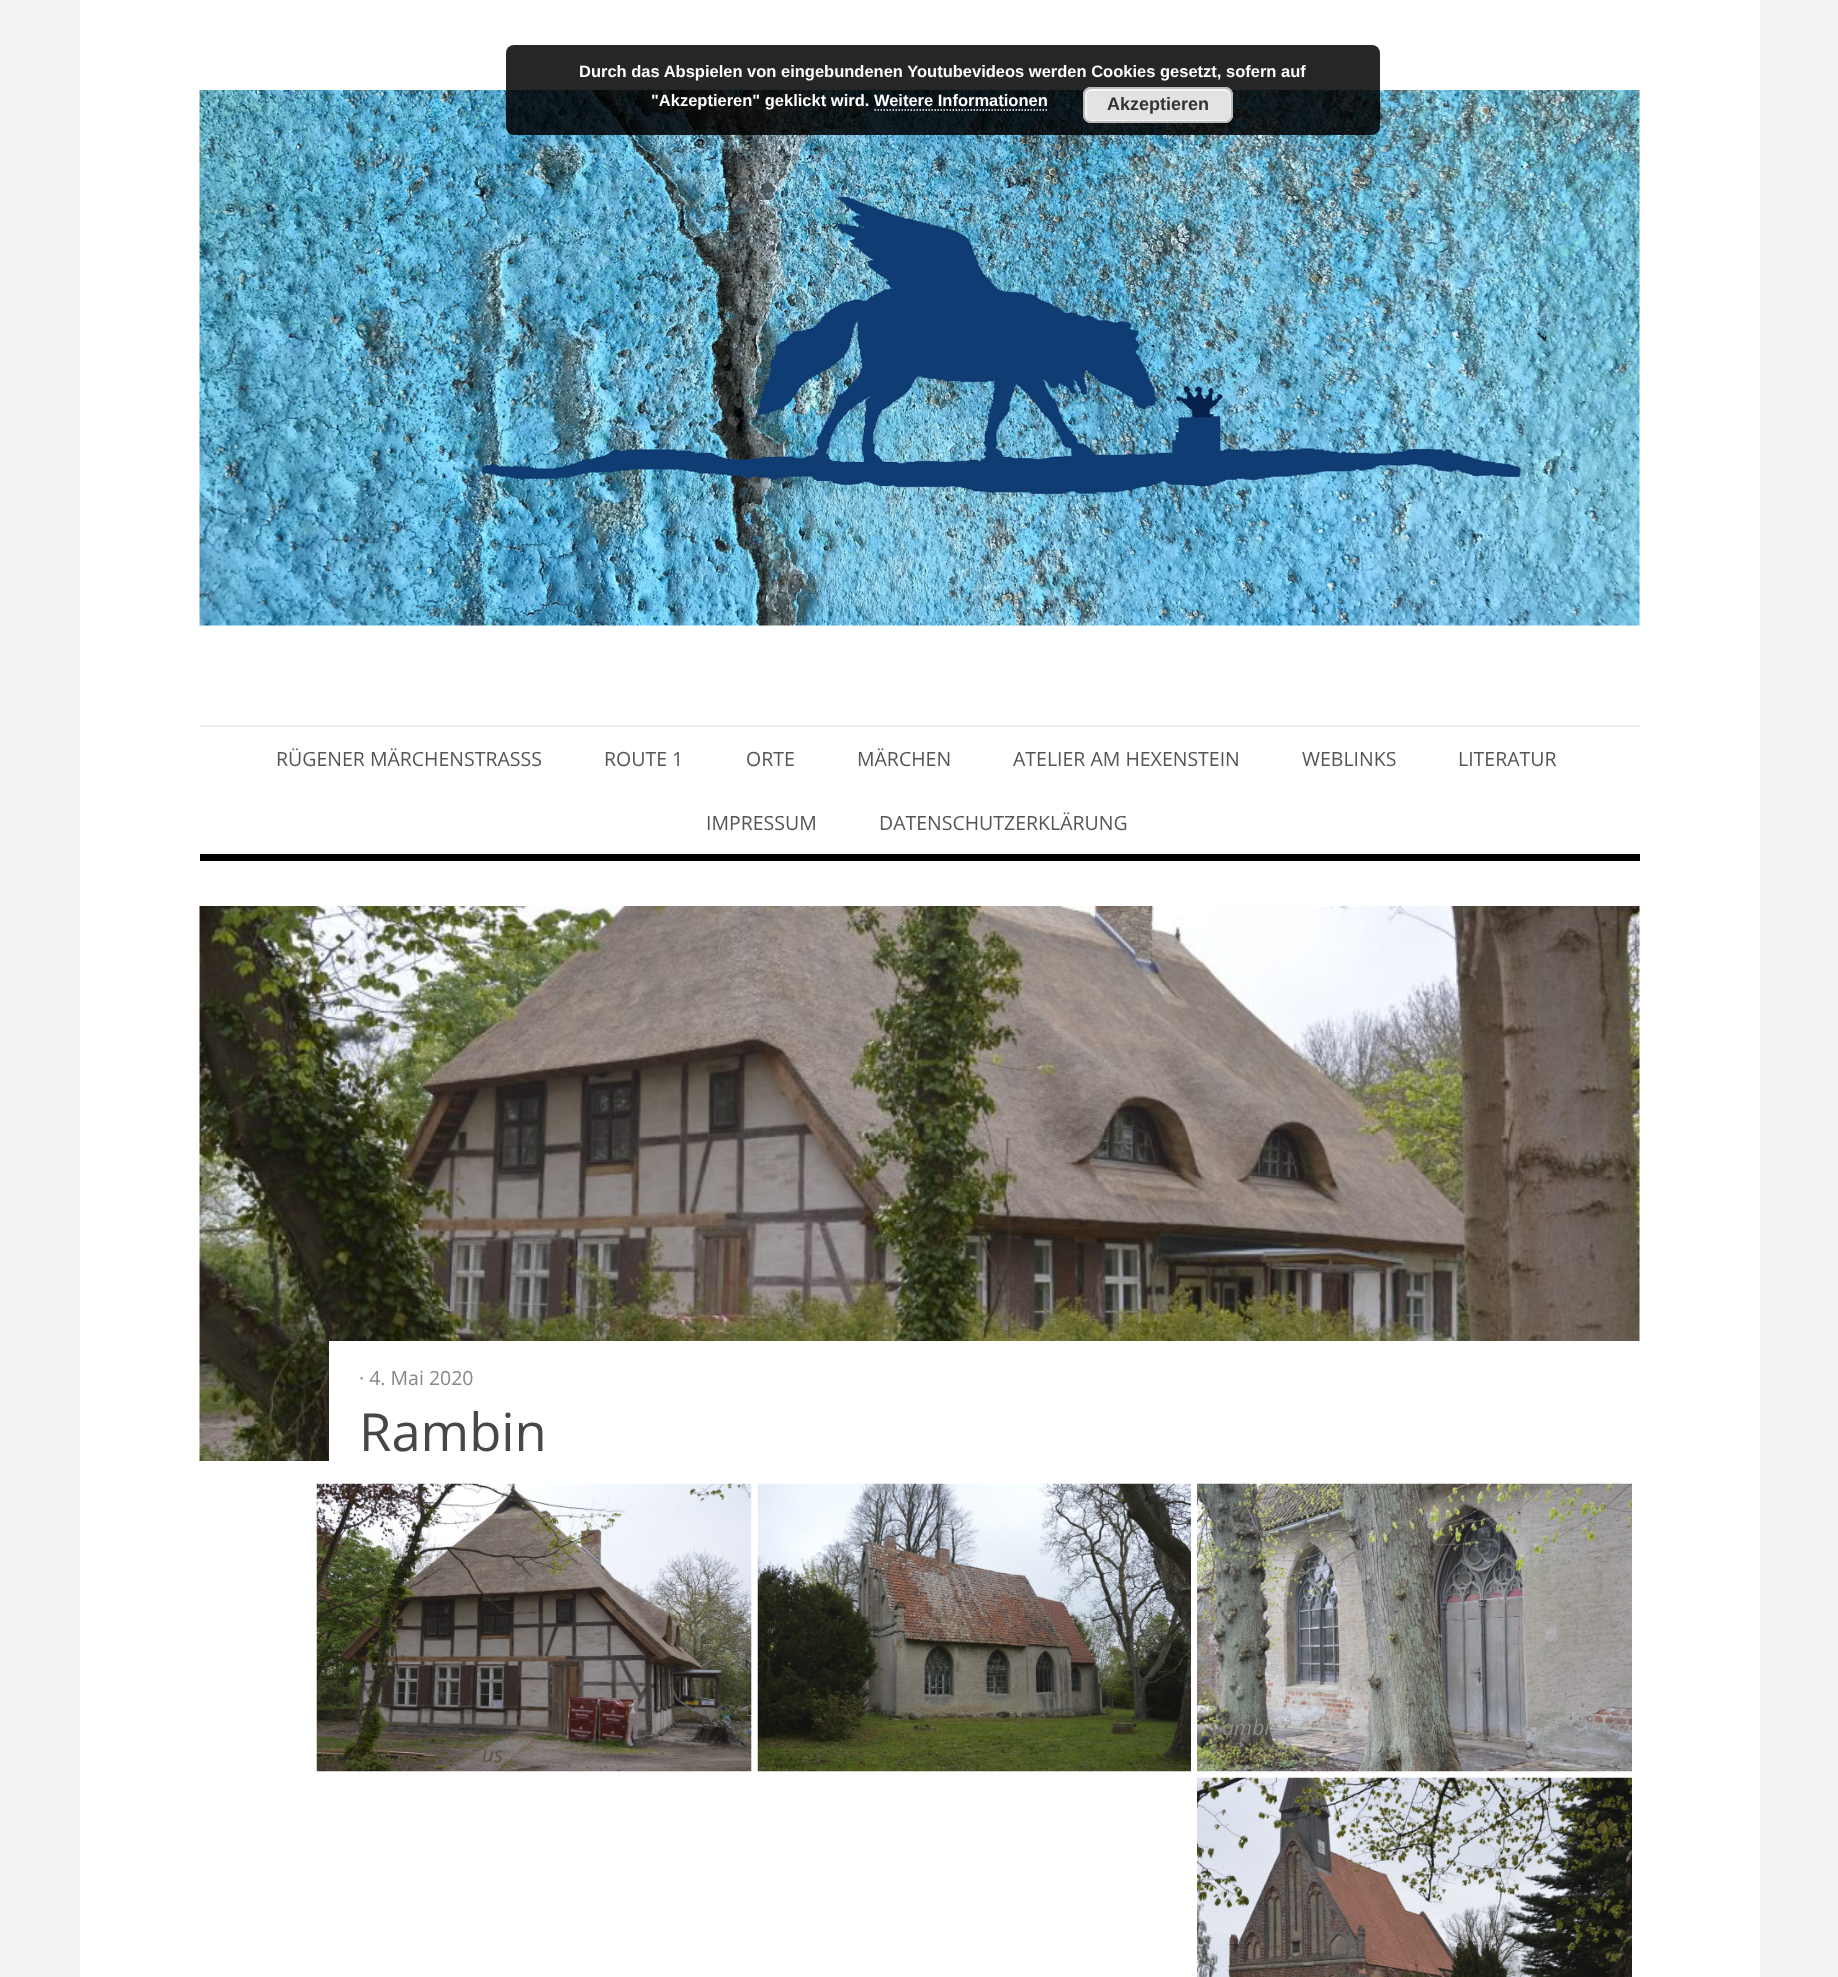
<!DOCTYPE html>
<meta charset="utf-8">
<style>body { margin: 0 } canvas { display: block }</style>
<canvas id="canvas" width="1838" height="1977"></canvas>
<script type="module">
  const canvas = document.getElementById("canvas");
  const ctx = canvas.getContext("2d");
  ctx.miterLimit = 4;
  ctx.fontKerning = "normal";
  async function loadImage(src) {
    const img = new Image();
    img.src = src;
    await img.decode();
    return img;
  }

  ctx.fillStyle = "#f2f2f2";
  ctx.fillRect(0, 0, 1838, 1977);
  ctx.fillStyle = "#ffffff";
  ctx.fillRect(80, 0, 1680, 1977);
  ctx.drawImage(await loadImage("img1.png"), 199, 90, 1441, 536);
  ctx.fillStyle = "rgba(0, 0, 0, 0.85)";
  ctx.beginPath();
  ctx.roundRect(506, 45, 874, 90, 8);
  ctx.fill();
  ctx.font = "bold 16.5px Liberation Sans";
  ctx.fillStyle = "#ffffff";
  ctx.fillText("Durch das Abspielen von eingebundenen Youtubevideos werden Cookies gesetzt, sofern auf", 579, 77);
  ctx.fillText("\"Akzeptieren\" geklickt wird. Weitere Informationen", 651, 106);
  ctx.fillStyle = "#e3e3e3";
  ctx.beginPath();
  ctx.roundRect(1083, 87, 150, 36, 8);
  ctx.fill();
  ctx.beginPath();
  ctx.roundRect(1086, 90, 145, 31, 5);
  ctx.strokeStyle = "#f6f6f6";
  ctx.lineWidth = 2;
  ctx.stroke();
  ctx.beginPath();
  ctx.roundRect(1084, 88, 148, 34, 7);
  ctx.strokeStyle = "#bbbbbb";
  ctx.stroke();
  ctx.font = "bold 18px Liberation Sans";
  ctx.fillStyle = "#333333";
  ctx.fillText("Akzeptieren", 1107, 110);
  ctx.beginPath();
  ctx.moveTo(874.5, 110);
  ctx.lineTo(1048.5, 110);
  ctx.strokeStyle = "#ffffff";
  ctx.lineWidth = 1.5;
  ctx.setLineDash([1.5, 1.5]);
  ctx.stroke();
  ctx.fillStyle = "#efefef";
  ctx.fillRect(200, 725, 1440, 2);
  ctx.fillStyle = "#000000";
  ctx.fillRect(200, 854, 1440, 7);
  ctx.font = "19.5px Open Sans";
  ctx.fillStyle = "#555555";
  ctx.fillText("RÜGENER MÄRCHENSTRASSS", 276, 766);
  ctx.fillText("ROUTE 1", 604, 766);
  ctx.fillText("ORTE", 746, 766);
  ctx.fillText("MÄRCHEN", 857, 766);
  ctx.fillText("ATELIER AM HEXENSTEIN", 1013, 766);
  ctx.fillText("WEBLINKS", 1302, 766);
  ctx.fillText("LITERATUR", 1458, 766);
  ctx.fillText("IMPRESSUM", 706, 830);
  ctx.fillText("DATENSCHUTZERKLÄRUNG", 879, 830);
  ctx.drawImage(await loadImage("img2.png"), 199, 906, 1441, 555);
  ctx.fillStyle = "#ffffff";
  ctx.fillRect(329, 1341, 1311, 120);
  ctx.fillStyle = "#878787";
  ctx.fillText("· 4. Mai 2020", 359, 1385);
  ctx.font = "52.5px Open Sans";
  ctx.fillStyle = "#474747";
  ctx.fillText("Rambin", 359, 1451);
  ctx.drawImage(await loadImage("img3.png"), 757, 1483, 434, 289);
  ctx.drawImage(await loadImage("img4.png"), 1197, 1483, 435, 289);
  ctx.font = "italic 21px Open Sans";
  ctx.fillStyle = "#8d8d8a";
  ctx.fillText("ambi", 1222, 1735);
  ctx.fillText("r", 1430, 1735);
  ctx.fillText("-.", 1525, 1735);
  ctx.drawImage(await loadImage("img5.png"), 316, 1483, 436, 289);
  ctx.fillStyle = "#585342";
  ctx.fillText("us", 482, 1762);
  ctx.drawImage(await loadImage("img6.png"), 1197, 1777, 435, 200);
</script>
